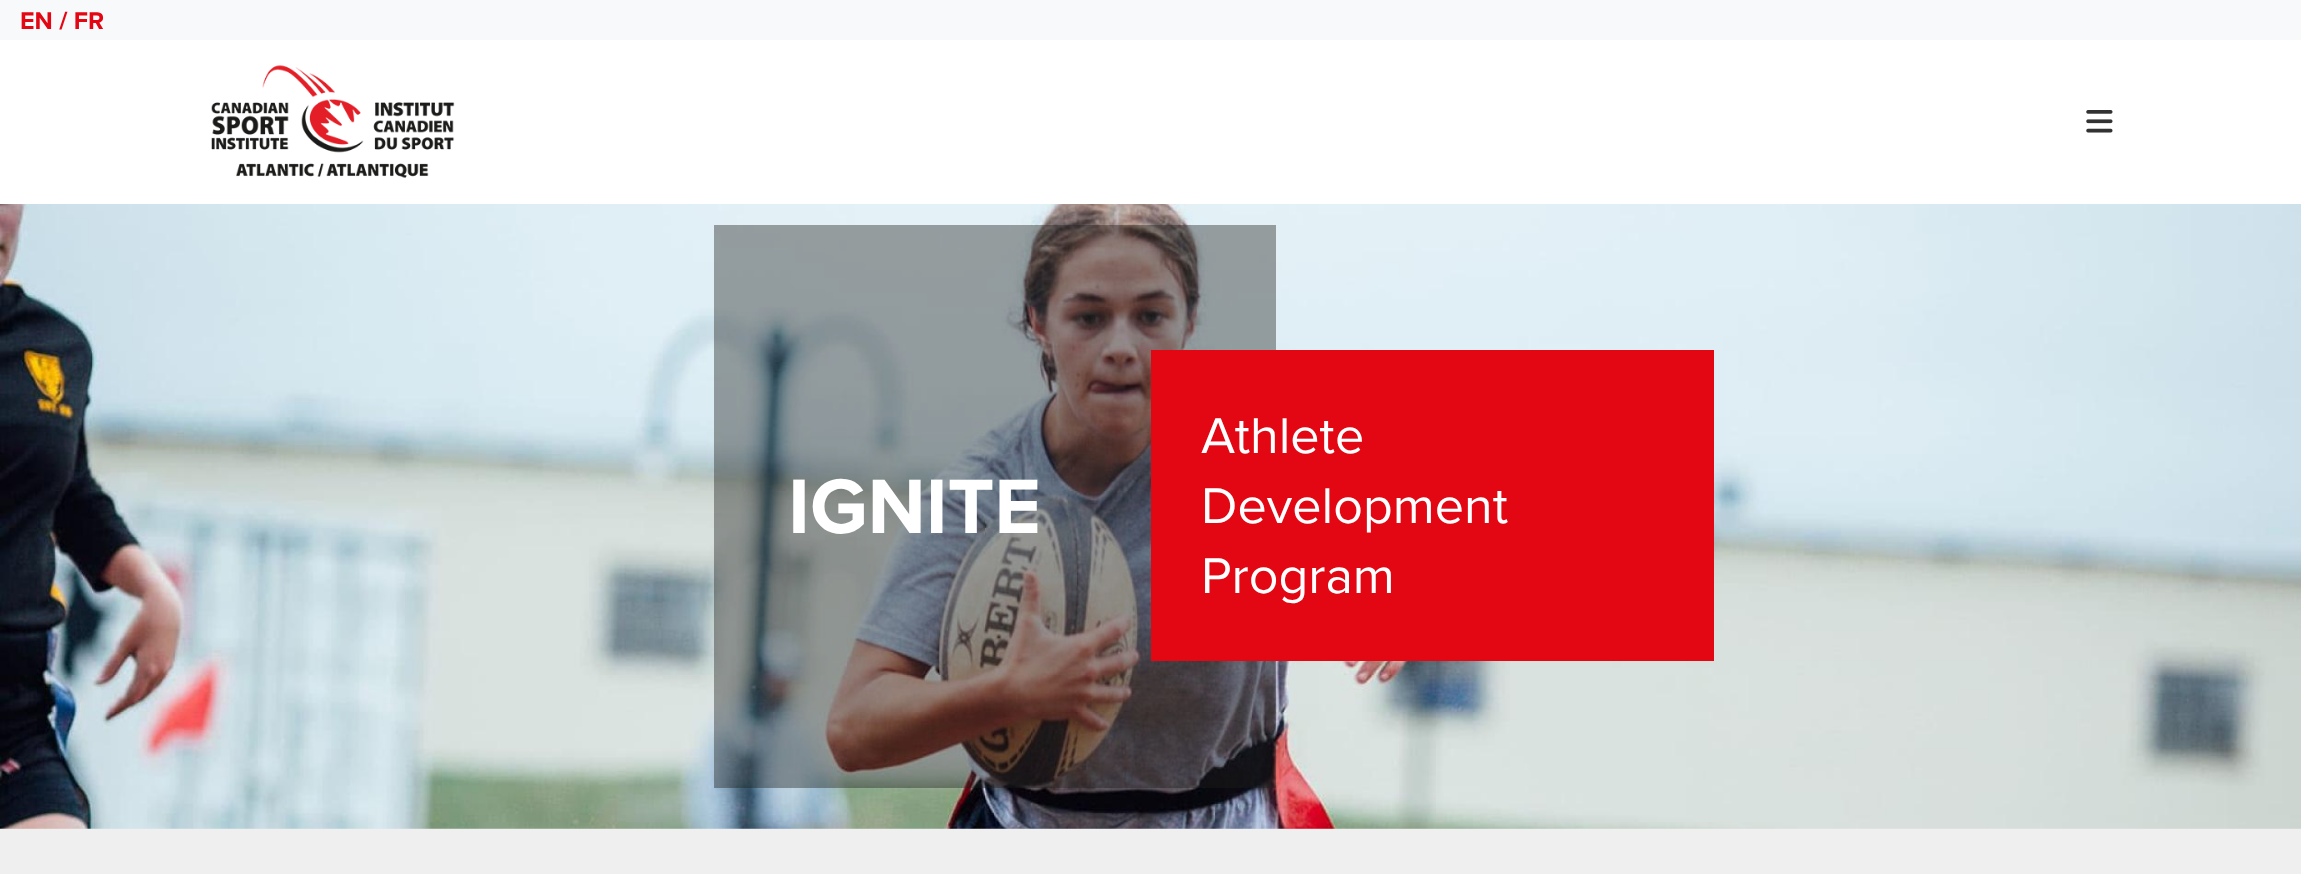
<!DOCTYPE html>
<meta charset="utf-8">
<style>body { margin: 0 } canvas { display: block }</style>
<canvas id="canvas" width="2301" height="874"></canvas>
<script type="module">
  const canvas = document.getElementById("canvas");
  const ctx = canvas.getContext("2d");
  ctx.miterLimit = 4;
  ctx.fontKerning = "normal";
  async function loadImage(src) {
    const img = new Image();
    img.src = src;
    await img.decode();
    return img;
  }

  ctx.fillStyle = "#efefef";
  ctx.fillRect(0, 0, 2301, 874);
  ctx.fillStyle = "#f8f9fb";
  ctx.fillRect(0, 0, 2301, 40);
  ctx.font = "bold 25px Proxima Nova";
  ctx.fillStyle = "#e30613";
  ctx.fillText("EN / FR", 20, 29);
  ctx.fillStyle = "#ffffff";
  ctx.fillRect(0, 40, 2301, 164);
  ctx.drawImage(await loadImage("img1.png"), 211, 65, 244, 113);
  ctx.drawImage(await loadImage("img2.png"), 2086, 110, 27, 23);
  ctx.drawImage(await loadImage("img3.png"), 0, 204, 2301, 625);
  ctx.fillStyle = "rgba(29, 29, 27, 0.4)";
  ctx.fillRect(714, 225, 562, 563);
  ctx.font = "bold 80px Proxima Nova";
  ctx.fillStyle = "#ffffff";
  ctx.fillText("IGNITE", 788, 533);
  ctx.fillStyle = "#e30613";
  ctx.fillRect(1151, 350, 563, 311);
  ctx.font = "52px Proxima Nova";
  ctx.fillStyle = "#ffffff";
  ctx.fillText("Athlete", 1201, 453);
  ctx.fillText("Development", 1201, 523);
  ctx.fillText("Program", 1201, 593);
</script>
